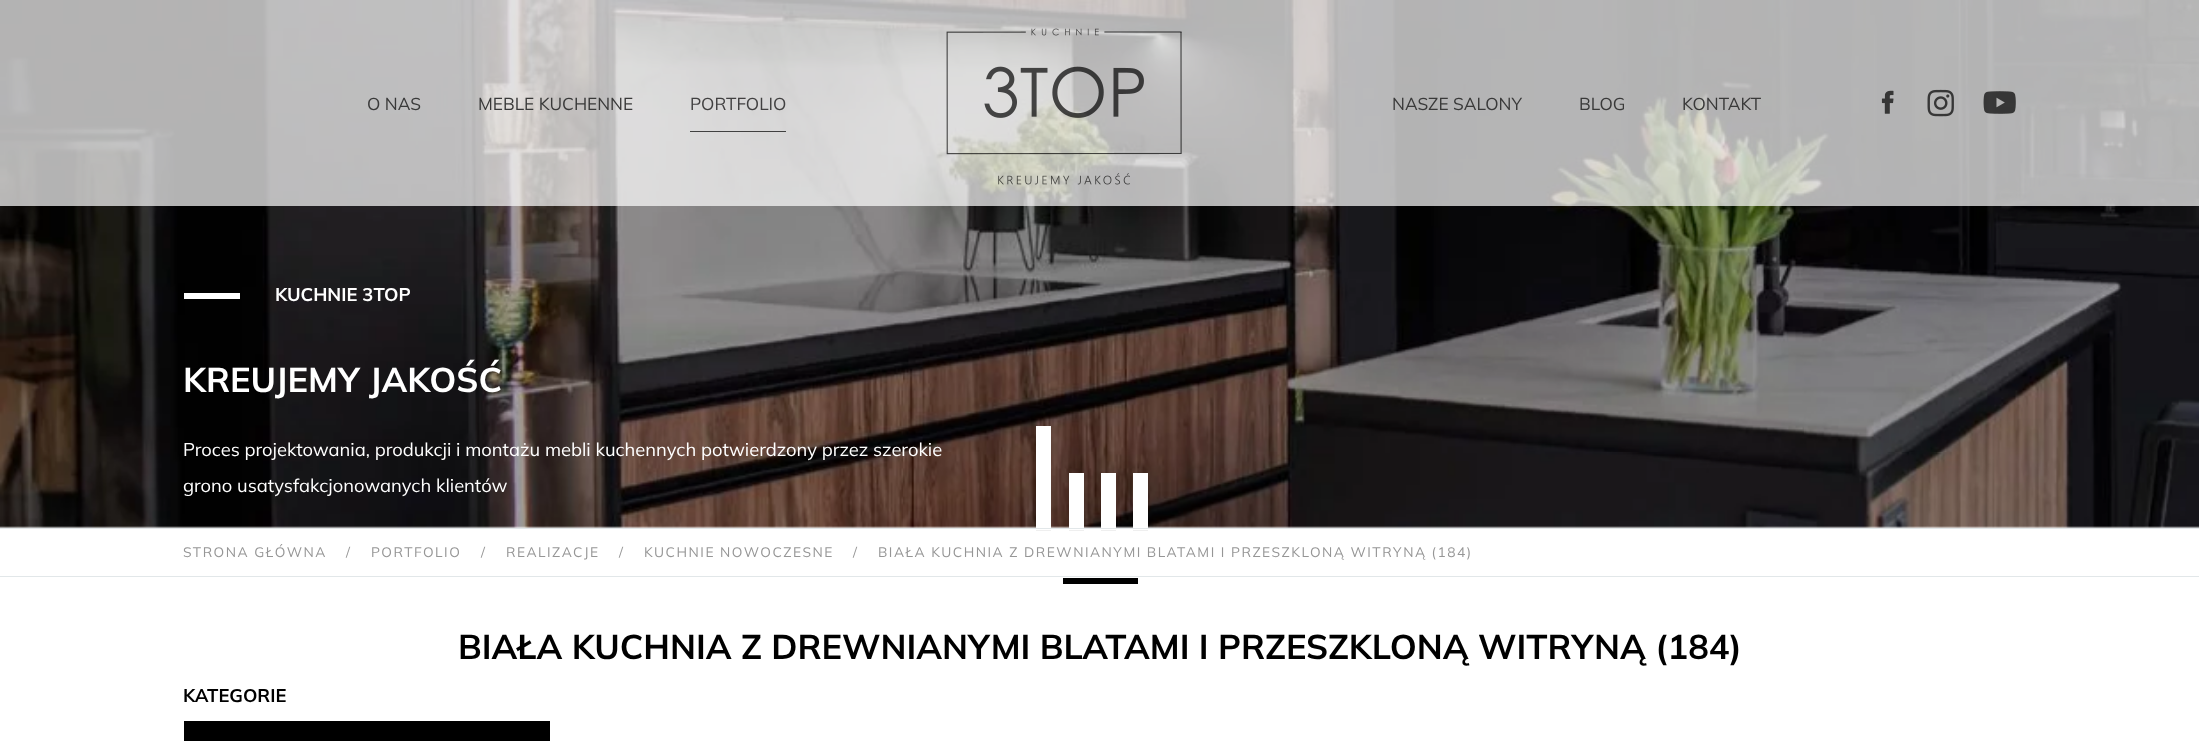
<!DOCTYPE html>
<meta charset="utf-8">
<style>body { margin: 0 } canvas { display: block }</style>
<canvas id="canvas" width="2199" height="741"></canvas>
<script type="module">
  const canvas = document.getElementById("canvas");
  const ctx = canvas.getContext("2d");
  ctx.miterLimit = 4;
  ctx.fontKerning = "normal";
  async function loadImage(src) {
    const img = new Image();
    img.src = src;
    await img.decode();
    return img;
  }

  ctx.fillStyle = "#ffffff";
  ctx.fillRect(0, 0, 2199, 741);
  ctx.drawImage(await loadImage("img5.png"), 0, 0, 2199, 528);
  ctx.fillStyle = "rgba(255, 255, 255, 0.7)";
  ctx.fillRect(0, 0, 2199, 206);
  ctx.font = "17.25px Mulish";
  ctx.fillStyle = "#393939";
  ctx.fillText("O NAS", 367, 110);
  ctx.fillText("MEBLE KUCHENNE", 478, 110);
  ctx.fillStyle = "#414041";
  ctx.fillText("PORTFOLIO", 690, 110);
  ctx.fillStyle = "rgba(0, 0, 0, 0.7)";
  ctx.fillRect(690, 131, 96, 1);
  ctx.drawImage(await loadImage("img1.png"), 946, 28, 236, 157);
  ctx.fillStyle = "#393939";
  ctx.fillText("NASZE SALONY", 1392, 110);
  ctx.fillText("BLOG", 1579, 110);
  ctx.fillText("KONTAKT", 1682, 110);
  ctx.drawImage(await loadImage("img2.png"), 1881, 90, 13, 24);
  ctx.drawImage(await loadImage("img3.png"), 1927, 89, 27, 28);
  ctx.drawImage(await loadImage("img4.png"), 1983, 91, 33, 23);
  ctx.fillStyle = "#ffffff";
  ctx.fillRect(184, 293, 56, 6);
  ctx.font = "bold 18.35px Mulish";
  ctx.fillText("KUCHNIE 3TOP", 275, 301);
  ctx.font = "bold 34.4px Mulish";
  ctx.fillText("KREUJEMY JAKOŚĆ", 183, 392);
  ctx.font = "18.35px Mulish";
  ctx.fillText("Proces projektowania, produkcji i montażu mebli kuchennych potwierdzony przez szerokie", 183, 456);
  ctx.fillText("grono usatysfakcjonowanych klientów", 183, 492);
  ctx.fillStyle = "#efefef";
  ctx.fillRect(1036, 530, 15, 1);
  ctx.fillStyle = "#ffffff";
  ctx.fillRect(1036, 426, 15, 102);
  ctx.fillStyle = "#efefef";
  ctx.fillRect(1069, 530, 15, 1);
  ctx.fillStyle = "#ffffff";
  ctx.fillRect(1069, 473, 15, 55);
  ctx.fillStyle = "#efefef";
  ctx.fillRect(1101, 530, 15, 1);
  ctx.fillStyle = "#ffffff";
  ctx.fillRect(1101, 473, 15, 55);
  ctx.fillStyle = "#efefef";
  ctx.fillRect(1133, 530, 15, 1);
  ctx.fillStyle = "#ffffff";
  ctx.fillRect(1133, 473, 15, 55);
  ctx.fillStyle = "#e2e7e9";
  ctx.fillRect(0, 528, 2199, 1);
  ctx.fillRect(0, 576, 2199, 1);
  ctx.letterSpacing = "1.5px";
  ctx.font = "13.75px Mulish";
  ctx.fillStyle = "#969696";
  ctx.fillText("STRONA GŁÓWNA", 183, 557);
  ctx.fillText("/", 346, 557);
  ctx.fillText("PORTFOLIO", 371, 557);
  ctx.fillText("/", 481, 557);
  ctx.fillText("REALIZACJE", 506, 557);
  ctx.fillText("/", 619, 557);
  ctx.fillText("KUCHNIE NOWOCZESNE", 644, 557);
  ctx.fillText("/", 853, 557);
  ctx.fillText("BIAŁA KUCHNIA Z DREWNIANYMI BLATAMI I PRZESZKLONĄ WITRYNĄ (184)", 878, 557);
  ctx.fillStyle = "#000000";
  ctx.fillRect(1063, 578, 75, 6);
  ctx.letterSpacing = "0px";
  ctx.font = "bold 34.4px Mulish";
  ctx.fillText("BIAŁA KUCHNIA Z DREWNIANYMI BLATAMI I PRZESZKLONĄ WITRYNĄ (184)", 458, 659);
  ctx.font = "bold 18.35px Mulish";
  ctx.fillText("KATEGORIE", 183, 702);
  ctx.fillRect(184, 721, 366, 20);
</script>
